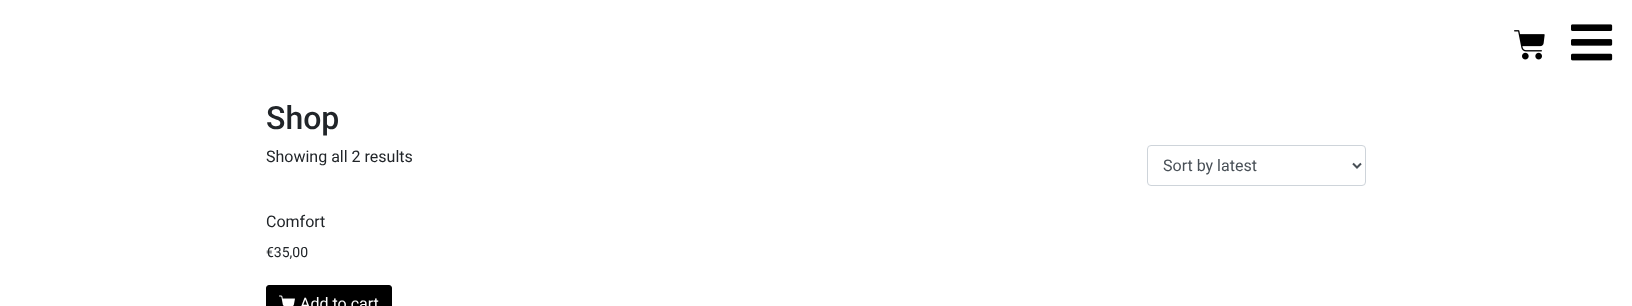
<!DOCTYPE html>
<meta charset="utf-8">
<style>body { margin: 0 } canvas { display: block }</style>
<canvas id="canvas" width="1632" height="306"></canvas>
<script type="module">
  const canvas = document.getElementById("canvas");
  const ctx = canvas.getContext("2d");
  ctx.miterLimit = 4;
  ctx.fontKerning = "normal";
  async function loadImage(src) {
    const img = new Image();
    img.src = src;
    await img.decode();
    return img;
  }

  ctx.fillStyle = "#ffffff";
  ctx.fillRect(0, 0, 1632, 306);
  ctx.drawImage(await loadImage("img1.png"), 1514, 30, 31, 30);
  ctx.drawImage(await loadImage("img2.png"), 1571, 24, 42, 37);
  ctx.font = "500 32px Roboto";
  ctx.fillStyle = "#212529";
  ctx.fillText("Shop", 266, 129);
  ctx.font = "16px Roboto";
  ctx.fillText("Showing all 2 results", 266, 162);
  ctx.beginPath();
  ctx.roundRect(1147.5, 145.5, 218, 40, 3.5);
  ctx.strokeStyle = "#ced4da";
  ctx.stroke();
  ctx.beginPath();
  ctx.moveTo(1353, 163.5);
  ctx.lineTo(1357, 167.5);
  ctx.lineTo(1361, 163.5);
  ctx.strokeStyle = "#495057";
  ctx.lineWidth = 2;
  ctx.stroke();
  ctx.fillStyle = "#495057";
  ctx.fillText("Sort by latest", 1163, 171);
  ctx.fillStyle = "#212529";
  ctx.fillText("Comfort", 266, 227);
  ctx.font = "14px Roboto";
  ctx.fillText("€35,00", 266, 257);
  ctx.fillStyle = "#000000";
  ctx.beginPath();
  ctx.roundRect(266.5, 285.5, 125, 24, 2.5);
  ctx.fill();
  ctx.strokeStyle = "#000000";
  ctx.lineWidth = 1;
  ctx.stroke();
  ctx.drawImage(await loadImage("img3.png"), 279, 295, 16, 11);
  ctx.font = "16px Roboto";
  ctx.fillStyle = "#ffffff";
  ctx.fillText("Add to cart", 300, 309);
</script>
